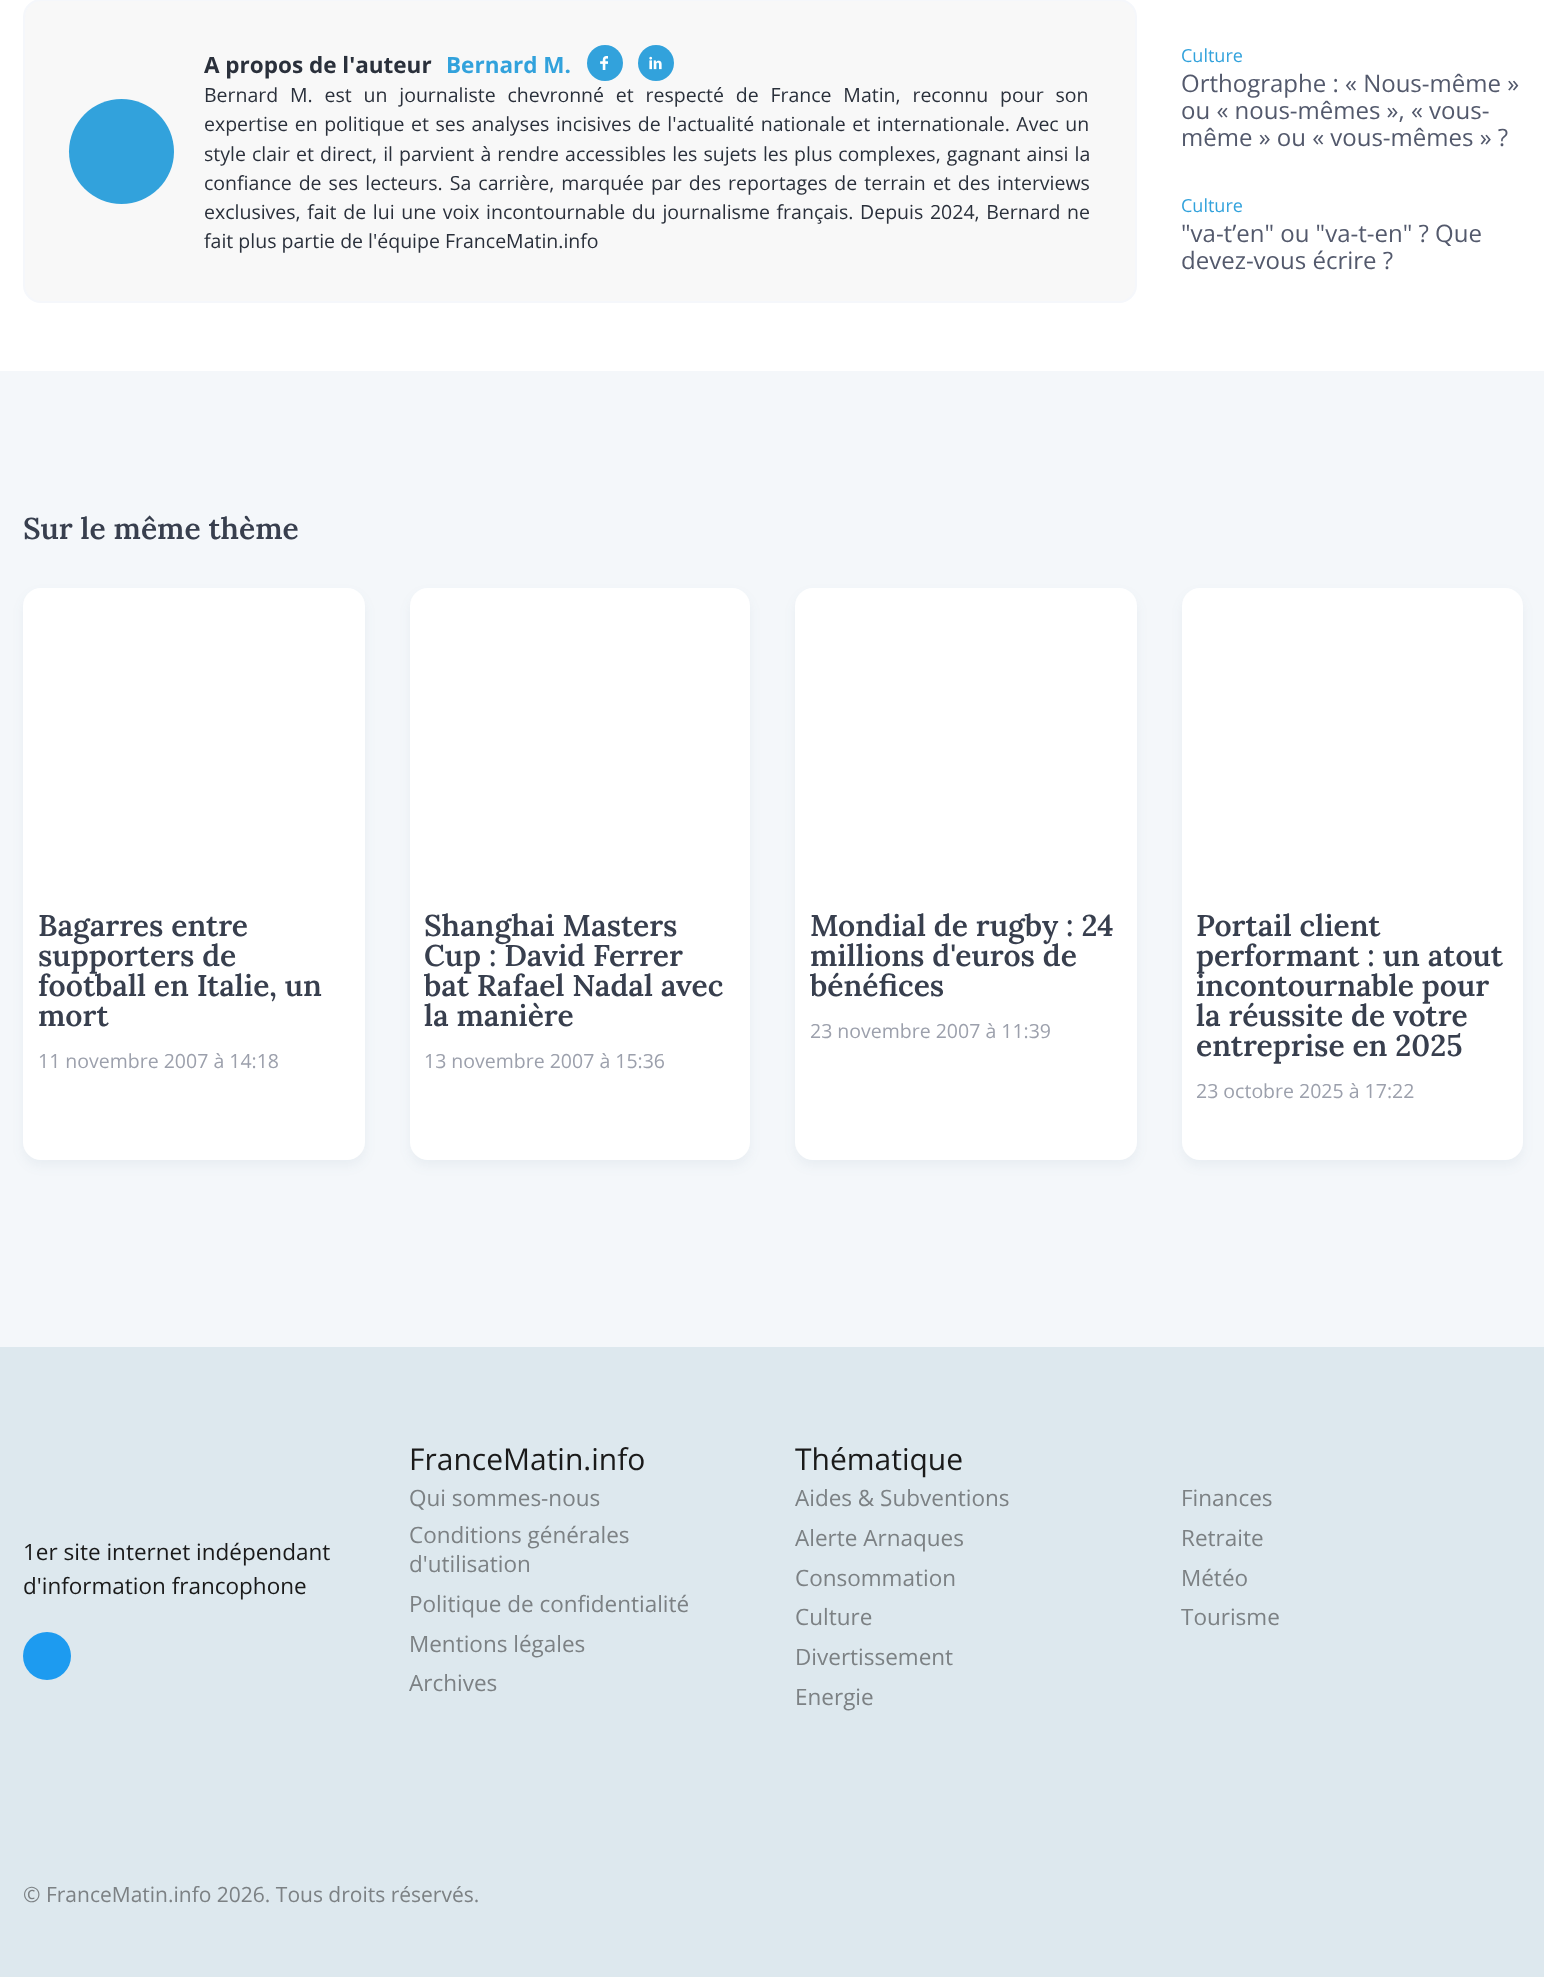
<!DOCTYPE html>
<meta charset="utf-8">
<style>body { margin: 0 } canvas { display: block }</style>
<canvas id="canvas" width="1544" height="1977"></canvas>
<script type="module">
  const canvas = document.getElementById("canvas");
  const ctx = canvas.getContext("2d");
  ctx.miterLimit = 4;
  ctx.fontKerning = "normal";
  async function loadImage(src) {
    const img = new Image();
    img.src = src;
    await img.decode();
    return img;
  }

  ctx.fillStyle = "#f4f7fa";
  ctx.fillRect(0, 0, 1544, 1977);
  ctx.fillStyle = "#ffffff";
  ctx.fillRect(0, 0, 1544, 371);
  ctx.fillStyle = "#f8f8f8";
  ctx.beginPath();
  ctx.roundRect(24, 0, 1112, 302, 17);
  ctx.fill();
  ctx.strokeStyle = "#f5f7fb";
  ctx.lineWidth = 2;
  ctx.stroke();
  ctx.fillStyle = "#32a2dc";
  ctx.beginPath();
  ctx.arc(121.5, 151.5, 52.5, 0, Math.PI * 2);
  ctx.fill();
  ctx.font = "bold 22.5px Open Sans";
  ctx.fillStyle = "#2a303b";
  ctx.fillText("A propos de l'auteur", 204, 73);
  ctx.fillStyle = "#32a2dc";
  ctx.fillText("Bernard M.", 446, 73);
  ctx.beginPath();
  ctx.arc(605, 63, 18, 0, Math.PI * 2);
  ctx.fill();
  ctx.drawImage(await loadImage("img1.png"), 600, 56, 8, 14);
  ctx.beginPath();
  ctx.arc(656, 63, 18, 0, Math.PI * 2);
  ctx.fill();
  ctx.drawImage(await loadImage("img2.png"), 649, 56, 13, 14);
  ctx.wordSpacing = "6.75px";
  ctx.font = "19.5px Open Sans";
  ctx.fillStyle = "#2a303b";
  ctx.fillText("Bernard M. est un journaliste chevronné et respecté de France Matin, reconnu pour son", 204, 102);
  ctx.wordSpacing = "1.5px";
  ctx.fillText("expertise en politique et ses analyses incisives de l'actualité nationale et internationale. Avec un", 204, 131);
  ctx.wordSpacing = "1px";
  ctx.fillText("style clair et direct, il parvient à rendre accessibles les sujets les plus complexes, gagnant ainsi la", 204, 161);
  ctx.wordSpacing = "2px";
  ctx.fillText("confiance de ses lecteurs. Sa carrière, marquée par des reportages de terrain et des interviews", 204, 190);
  ctx.wordSpacing = "1.6px";
  ctx.fillText("exclusives, fait de lui une voix incontournable du journalisme français. Depuis 2024, Bernard ne", 204, 219);
  ctx.wordSpacing = "0px";
  ctx.fillText("fait plus partie de l'équipe FranceMatin.info", 204, 248);
  ctx.font = "18px Open Sans";
  ctx.fillStyle = "#32a2dc";
  ctx.fillText("Culture", 1181, 62);
  ctx.font = "24px Open Sans";
  ctx.fillStyle = "#53596c";
  ctx.fillText("Orthographe : « Nous-même »", 1181, 92);
  ctx.fillText("ou « nous-mêmes », « vous-", 1181, 119);
  ctx.fillText("même » ou « vous-mêmes » ?", 1181, 146);
  ctx.font = "18px Open Sans";
  ctx.fillStyle = "#32a2dc";
  ctx.fillText("Culture", 1181, 212);
  ctx.font = "24px Open Sans";
  ctx.fillStyle = "#53596c";
  ctx.fillText("\"va-t’en\" ou \"va-t-en\" ? Que", 1181, 242);
  ctx.fillText("devez-vous écrire ?", 1181, 269);
  ctx.font = "600 30px Lora";
  ctx.fillStyle = "#383f4e";
  ctx.fillText("Sur le même thème", 23, 539);
  ctx.fillStyle = "rgba(51, 77, 114, 0.06)";
  ctx.filter = "blur(6px)";
  ctx.beginPath();
  ctx.roundRect(23, 594, 342, 572, 18);
  ctx.fill();
  ctx.filter = "none";
  ctx.fillStyle = "#ffffff";
  ctx.beginPath();
  ctx.roundRect(23, 588, 342, 572, 18);
  ctx.fill();
  ctx.fillStyle = "#383f4e";
  ctx.fillText("Bagarres entre", 38, 936);
  ctx.fillText("supporters de", 38, 966);
  ctx.fillText("football en Italie, un", 38, 996);
  ctx.fillText("mort", 38, 1026);
  ctx.font = "19.5px Open Sans";
  ctx.fillStyle = "#9ca0ac";
  ctx.fillText("11 novembre 2007 à 14:18", 38, 1068);
  ctx.fillStyle = "rgba(51, 77, 114, 0.06)";
  ctx.filter = "blur(6px)";
  ctx.beginPath();
  ctx.roundRect(410, 594, 340, 572, 18);
  ctx.fill();
  ctx.filter = "none";
  ctx.fillStyle = "#ffffff";
  ctx.beginPath();
  ctx.roundRect(410, 588, 340, 572, 18);
  ctx.fill();
  ctx.font = "600 30px Lora";
  ctx.fillStyle = "#383f4e";
  ctx.fillText("Shanghai Masters", 424, 936);
  ctx.fillText("Cup : David Ferrer", 424, 966);
  ctx.fillText("bat Rafael Nadal avec", 424, 996);
  ctx.fillText("la manière", 424, 1026);
  ctx.font = "19.5px Open Sans";
  ctx.fillStyle = "#9ca0ac";
  ctx.fillText("13 novembre 2007 à 15:36", 424, 1068);
  ctx.fillStyle = "rgba(51, 77, 114, 0.06)";
  ctx.filter = "blur(6px)";
  ctx.beginPath();
  ctx.roundRect(795, 594, 342, 572, 18);
  ctx.fill();
  ctx.filter = "none";
  ctx.fillStyle = "#ffffff";
  ctx.beginPath();
  ctx.roundRect(795, 588, 342, 572, 18);
  ctx.fill();
  ctx.font = "600 30px Lora";
  ctx.fillStyle = "#383f4e";
  ctx.fillText("Mondial de rugby : 24", 810, 936);
  ctx.fillText("millions d'euros de", 810, 966);
  ctx.fillText("bénéfices", 810, 996);
  ctx.font = "19.5px Open Sans";
  ctx.fillStyle = "#9ca0ac";
  ctx.fillText("23 novembre 2007 à 11:39", 810, 1038);
  ctx.fillStyle = "rgba(51, 77, 114, 0.06)";
  ctx.filter = "blur(6px)";
  ctx.beginPath();
  ctx.roundRect(1182, 594, 341, 572, 18);
  ctx.fill();
  ctx.filter = "none";
  ctx.fillStyle = "#ffffff";
  ctx.beginPath();
  ctx.roundRect(1182, 588, 341, 572, 18);
  ctx.fill();
  ctx.font = "600 30px Lora";
  ctx.fillStyle = "#383f4e";
  ctx.fillText("Portail client", 1196, 936);
  ctx.fillText("performant : un atout", 1196, 966);
  ctx.fillText("incontournable pour", 1196, 996);
  ctx.fillText("la réussite de votre", 1196, 1026);
  ctx.fillText("entreprise en 2025", 1196, 1056);
  ctx.font = "19.5px Open Sans";
  ctx.fillStyle = "#9ca0ac";
  ctx.fillText("23 octobre 2025 à 17:22", 1196, 1098);
  ctx.fillStyle = "#dde8ee";
  ctx.fillRect(0, 1347, 1544, 630);
  ctx.font = "22.5px Open Sans";
  ctx.fillStyle = "#1a1a1a";
  ctx.fillText("1er site internet indépendant", 23, 1560);
  ctx.fillText("d'information francophone", 23, 1594);
  ctx.fillStyle = "#1d9bf0";
  ctx.beginPath();
  ctx.arc(47, 1656, 24, 0, Math.PI * 2);
  ctx.fill();
  ctx.font = "30px Open Sans";
  ctx.fillStyle = "#1a1a1a";
  ctx.fillText("FranceMatin.info", 409, 1470);
  ctx.font = "22.5px Open Sans";
  ctx.fillStyle = "#7c8184";
  ctx.fillText("Qui sommes-nous", 409, 1506);
  ctx.fillText("Conditions générales", 409, 1543);
  ctx.fillText("d'utilisation", 409, 1572);
  ctx.fillText("Politique de confidentialité", 409, 1612);
  ctx.fillText("Mentions légales", 409, 1652);
  ctx.fillText("Archives", 409, 1691);
  ctx.font = "30px Open Sans";
  ctx.fillStyle = "#1a1a1a";
  ctx.fillText("Thématique", 795, 1470);
  ctx.font = "22.5px Open Sans";
  ctx.fillStyle = "#7c8184";
  ctx.fillText("Aides & Subventions", 795, 1506);
  ctx.fillText("Alerte Arnaques", 795, 1546);
  ctx.fillText("Consommation", 795, 1586);
  ctx.fillText("Culture", 795, 1625);
  ctx.fillText("Divertissement", 795, 1665);
  ctx.fillText("Energie", 795, 1705);
  ctx.fillText("Finances", 1181, 1506);
  ctx.fillText("Retraite", 1181, 1546);
  ctx.fillText("Météo", 1181, 1586);
  ctx.fillText("Tourisme", 1181, 1625);
  ctx.font = "21px Open Sans";
  ctx.fillText("© FranceMatin.info 2026. Tous droits réservés.", 23, 1902);
</script>
